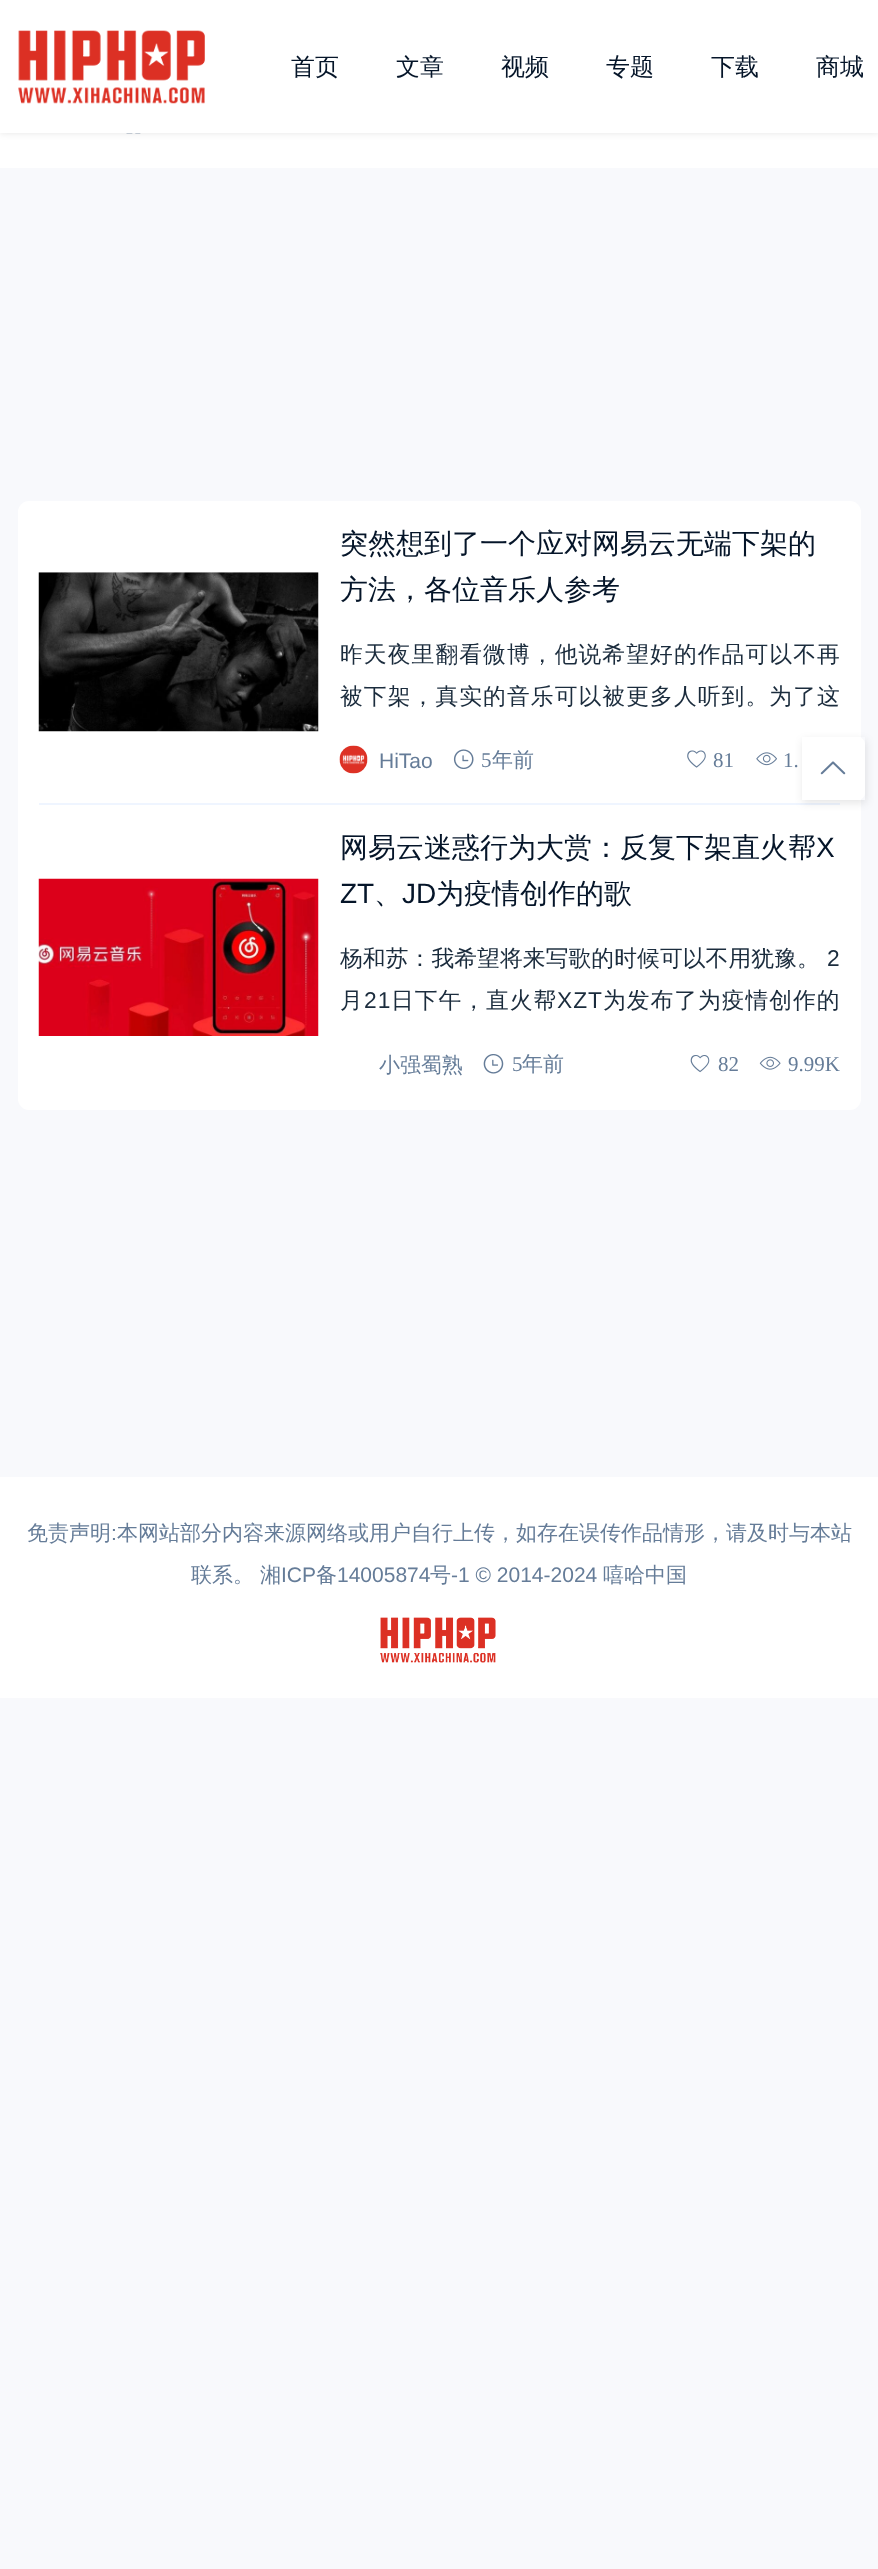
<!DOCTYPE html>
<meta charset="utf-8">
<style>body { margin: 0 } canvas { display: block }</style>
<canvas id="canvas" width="878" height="2569"></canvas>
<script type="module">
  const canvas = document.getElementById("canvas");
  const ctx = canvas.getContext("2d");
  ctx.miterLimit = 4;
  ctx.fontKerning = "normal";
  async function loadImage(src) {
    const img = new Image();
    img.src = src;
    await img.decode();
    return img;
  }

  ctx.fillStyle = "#f8f9fc";
  ctx.fillRect(0, 0, 878, 2569);
  ctx.fillStyle = "#ffffff";
  ctx.fillRect(0, 133, 878, 35);
  ctx.drawImage(await loadImage("img2.png"), 126, 133, 15, 1);
  ctx.fillStyle = "rgba(0, 0, 0, 0.1)";
  ctx.filter = "blur(3.5px)";
  ctx.beginPath();
  ctx.rect(0, 0, 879, 133);
  ctx.fill();
  ctx.filter = "none";
  ctx.fillStyle = "#ffffff";
  ctx.fillRect(0, 0, 878, 133);
  ctx.drawImage(await loadImage("img1.png"), 18, 30, 187, 74);
  ctx.font = "500 24px WenQuanYi Zen Hei";
  ctx.fillStyle = "#051529";
  ctx.fillText("首页", 291, 75);
  ctx.fillText("文章", 396, 75);
  ctx.fillText("视频", 501, 75);
  ctx.fillText("专题", 606, 75);
  ctx.fillText("下载", 711, 75);
  ctx.fillText("商城", 816, 75);
  ctx.fillStyle = "#ffffff";
  ctx.beginPath();
  ctx.roundRect(18, 501, 843, 609, 11);
  ctx.fill();
  ctx.fillStyle = "#eff5ff";
  ctx.fillRect(39, 803, 801, 2);
  ctx.drawImage(await loadImage("img3.png"), 38, 572, 281, 160);
  ctx.font = "500 28px WenQuanYi Zen Hei";
  ctx.fillStyle = "#051529";
  ctx.fillText("突然想到了一个应对网易云无端下架的", 340, 553);
  ctx.fillText("方法，各位音乐人参考", 340, 599);
  ctx.letterSpacing = "1.1px";
  ctx.font = "500 22.75px WenQuanYi Zen Hei";
  ctx.fillStyle = "#1b2c3d";
  ctx.fillText("昨天夜里翻看微博，他说希望好的作品可以不再", 340, 662);
  ctx.fillText("被下架，真实的音乐可以被更多人听到。为了这", 340, 704);
  ctx.drawImage(await loadImage("img4.png"), 339, 745, 29, 29);
  ctx.letterSpacing = "0px";
  ctx.font = "21px Liberation Sans";
  ctx.fillStyle = "#657c98";
  ctx.fillText("HiTao", 379, 768);
  ctx.drawImage(await loadImage("img5.png"), 453, 749, 21, 20);
  ctx.font = "21px Liberation Serif";
  ctx.fillText("5", 481, 767);
  ctx.font = "500 21px WenQuanYi Zen Hei";
  ctx.fillText("年前", 492, 767);
  ctx.drawImage(await loadImage("img6.png"), 687, 750, 19, 18);
  ctx.font = "21px Liberation Serif";
  ctx.fillText("81", 713, 767);
  ctx.drawImage(await loadImage("img7.png"), 756, 752, 21, 14);
  ctx.fillText("1.", 783, 767);
  ctx.drawImage(await loadImage("img8.png"), 38, 878, 281, 158);
  ctx.font = "500 28px WenQuanYi Zen Hei";
  ctx.fillStyle = "#051529";
  ctx.fillText("网易云迷惑行为大赏：反复下架直火帮", 340, 857);
  ctx.font = "28px Liberation Sans";
  ctx.fillText("X", 816, 857);
  ctx.fillText("ZT", 340, 903);
  ctx.font = "500 28px WenQuanYi Zen Hei";
  ctx.fillText("、", 374, 903);
  ctx.font = "28px Liberation Sans";
  ctx.fillText("JD", 402, 903);
  ctx.font = "500 28px WenQuanYi Zen Hei";
  ctx.fillText("为疫情创作的歌", 436, 903);
  ctx.letterSpacing = "0.1px";
  ctx.font = "500 22.75px WenQuanYi Zen Hei";
  ctx.fillStyle = "#1b2c3d";
  ctx.fillText("杨和苏：我希望将来写歌的时候可以不用犹豫。", 340, 966);
  ctx.font = "22.75px Liberation Sans";
  ctx.fillText("2", 827, 966);
  ctx.letterSpacing = "1px";
  ctx.font = "500 22.75px WenQuanYi Zen Hei";
  ctx.fillText("月", 340, 1008);
  ctx.font = "22.75px Liberation Sans";
  ctx.fillText("21", 364, 1008);
  ctx.font = "500 22.75px WenQuanYi Zen Hei";
  ctx.fillText("日下午，直火帮", 391, 1008);
  ctx.font = "22.75px Liberation Sans";
  ctx.fillText("XZT", 557, 1008);
  ctx.font = "500 22.75px WenQuanYi Zen Hei";
  ctx.fillText("为发布了为疫情创作的", 603, 1008);
  ctx.letterSpacing = "0px";
  ctx.font = "500 21px WenQuanYi Zen Hei";
  ctx.fillStyle = "#657c98";
  ctx.fillText("小强蜀熟", 379, 1072);
  ctx.drawImage(await loadImage("img9.png"), 483, 1054, 21, 20);
  ctx.font = "21px Liberation Serif";
  ctx.fillText("5", 512, 1071);
  ctx.font = "500 21px WenQuanYi Zen Hei";
  ctx.fillText("年前", 522, 1071);
  ctx.drawImage(await loadImage("img10.png"), 690, 1055, 20, 18);
  ctx.font = "21px Liberation Serif";
  ctx.fillText("82", 718, 1071);
  ctx.drawImage(await loadImage("img11.png"), 759, 1056, 22, 14);
  ctx.fillText("9.99K", 788, 1071);
  ctx.fillStyle = "#ffffff";
  ctx.fillRect(0, 1477, 878, 221);
  ctx.save();
  ctx.beginPath();
  ctx.moveTo(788, 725);
  ctx.lineTo(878, 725);
  ctx.lineTo(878, 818);
  ctx.lineTo(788, 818);
  ctx.closePath();
  ctx.moveTo(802, 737);
  ctx.lineTo(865, 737);
  ctx.lineTo(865, 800);
  ctx.lineTo(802, 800);
  ctx.closePath();
  ctx.clip("evenodd");
  ctx.fillStyle = "rgba(0, 0, 0, 0.1)";
  ctx.filter = "blur(4.5px)";
  ctx.beginPath();
  ctx.rect(803, 740, 63, 63);
  ctx.fill();
  ctx.filter = "none";
  ctx.restore();
  ctx.beginPath();
  ctx.roundRect(802, 737, 63, 63, 7);
  ctx.fill();
  ctx.drawImage(await loadImage("img12.png"), 820, 761, 26, 14);
  ctx.font = "500 21px WenQuanYi Zen Hei";
  ctx.fillStyle = "#657c98";
  ctx.fillText("免责声明", 27, 1540);
  ctx.font = "21px Liberation Sans";
  ctx.fillText(":", 111, 1540);
  ctx.font = "500 21px WenQuanYi Zen Hei";
  ctx.fillText("本网站部分内容来源网络或用户自行上传，如存在误传作品情形，请及时与本站", 117, 1540);
  ctx.fillText("联系。", 191, 1582);
  ctx.fillText("湘", 260, 1582);
  ctx.font = "21px Liberation Sans";
  ctx.fillText("ICP", 281, 1582);
  ctx.font = "500 21px WenQuanYi Zen Hei";
  ctx.fillText("备", 316, 1582);
  ctx.font = "21px Liberation Sans";
  ctx.fillText("14005874", 337, 1582);
  ctx.font = "500 21px WenQuanYi Zen Hei";
  ctx.fillText("号", 430, 1582);
  ctx.font = "21px Liberation Sans";
  ctx.fillText("-1 © 2014-2024", 451, 1582);
  ctx.font = "500 21px WenQuanYi Zen Hei";
  ctx.fillText("嘻哈中国", 603, 1582);
  ctx.drawImage(await loadImage("img13.png"), 380, 1617, 116, 46);
</script>
